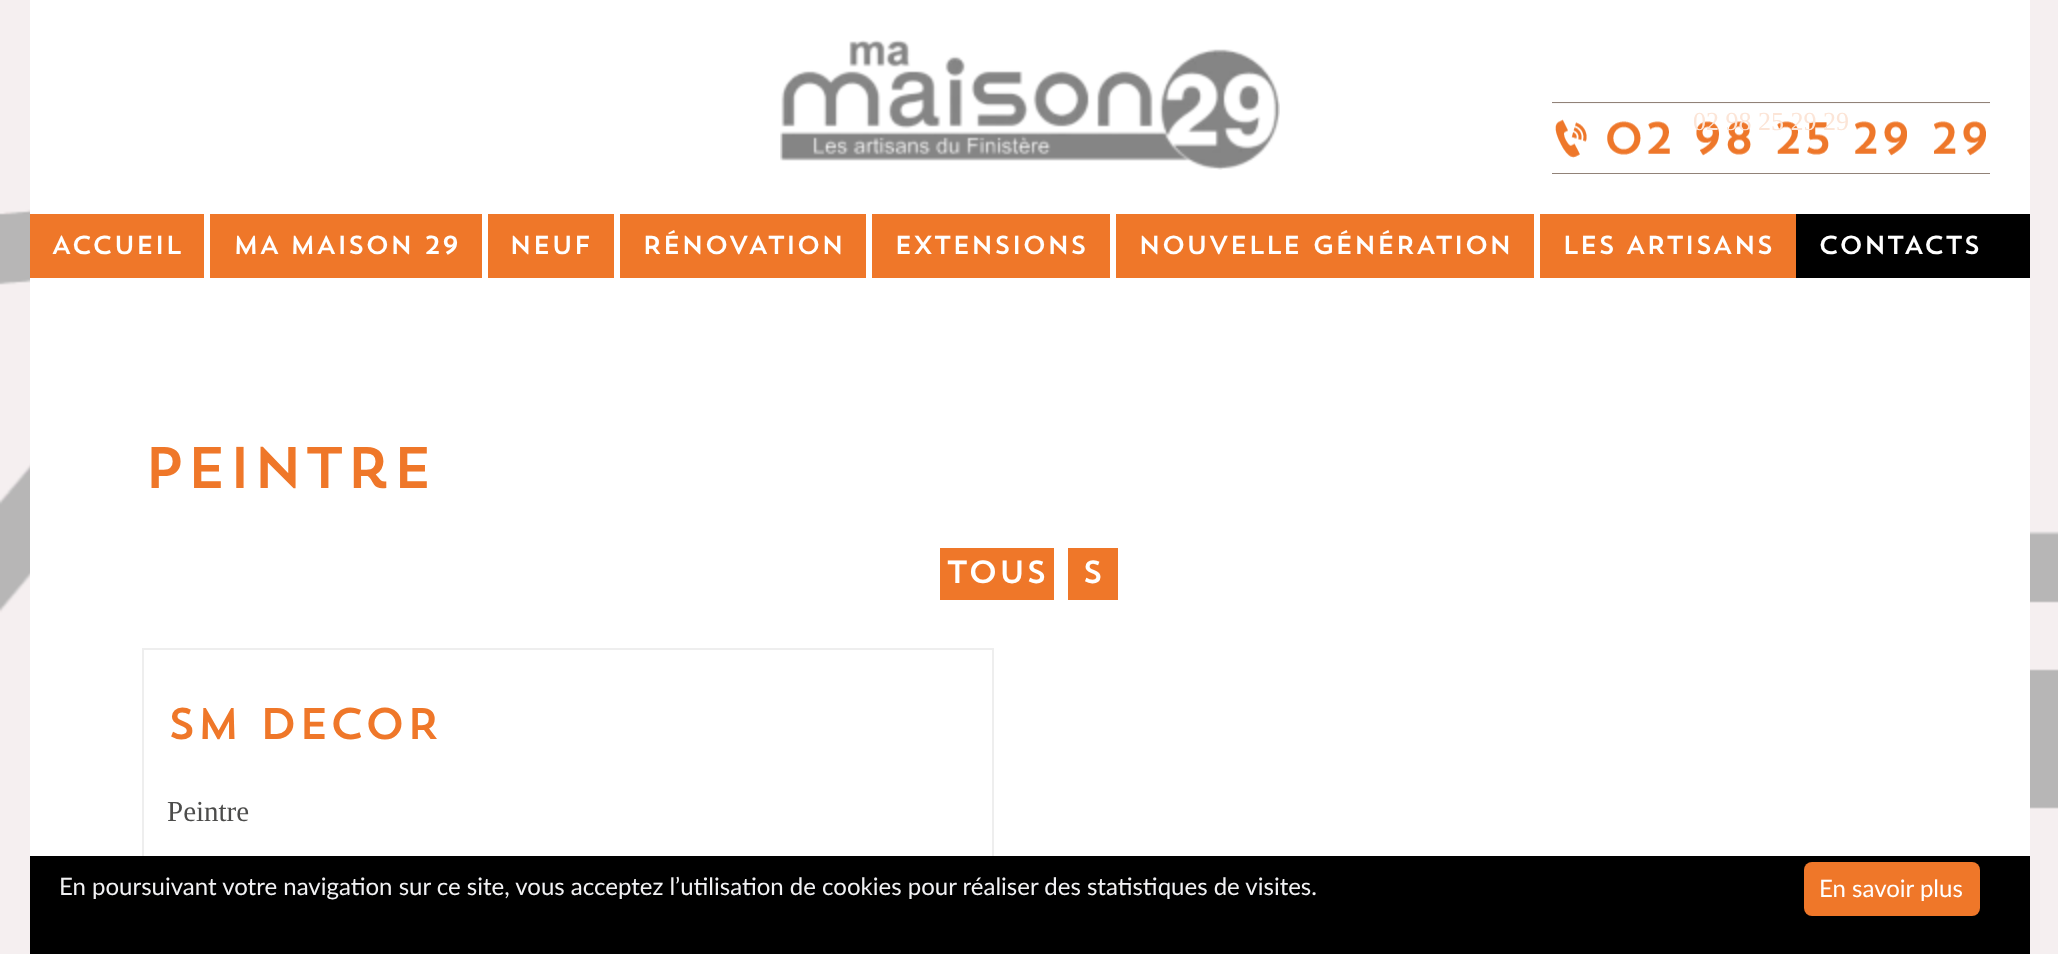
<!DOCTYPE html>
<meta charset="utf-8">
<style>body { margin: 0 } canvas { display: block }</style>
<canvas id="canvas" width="2058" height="954"></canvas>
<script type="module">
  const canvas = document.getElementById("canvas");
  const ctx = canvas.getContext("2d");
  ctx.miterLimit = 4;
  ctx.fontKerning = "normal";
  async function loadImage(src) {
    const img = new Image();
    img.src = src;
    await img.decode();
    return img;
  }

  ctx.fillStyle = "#f5eff0";
  ctx.fillRect(0, 0, 2058, 954);
  ctx.drawImage(await loadImage("img1.png"), 0, 181, 2058, 628);
  ctx.fillStyle = "#ffffff";
  ctx.fillRect(30, 0, 2000, 856);
  ctx.drawImage(await loadImage("img2.png"), 780, 40, 500, 130);
  ctx.drawImage(await loadImage("img3.png"), 1552, 102, 438, 72);
  ctx.font = "26px Liberation Serif";
  ctx.fillStyle = "#fce5d7";
  ctx.fillText("02 98 25 29 29", 1693, 130);
  ctx.fillStyle = "#000000";
  ctx.fillRect(1796, 214, 234, 64);
  ctx.fillStyle = "#ef7729";
  ctx.fillRect(30, 214, 174, 64);
  ctx.font = "26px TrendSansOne";
  ctx.fillStyle = "#ffffff";
  ctx.fillText("ACCUEIL", 51, 254);
  ctx.fillStyle = "#ef7729";
  ctx.fillRect(210, 214, 272, 64);
  ctx.fillStyle = "#ffffff";
  ctx.fillText("MA MAISON 29", 233, 254);
  ctx.fillStyle = "#ef7729";
  ctx.fillRect(488, 214, 126, 64);
  ctx.fillStyle = "#ffffff";
  ctx.fillText("NEUF", 509, 254);
  ctx.fillStyle = "#ef7729";
  ctx.fillRect(620, 214, 246, 64);
  ctx.fillStyle = "#ffffff";
  ctx.fillText("RÉNOVATION", 642, 254);
  ctx.fillStyle = "#ef7729";
  ctx.fillRect(872, 214, 238, 64);
  ctx.fillStyle = "#ffffff";
  ctx.fillText("EXTENSIONS", 894, 254);
  ctx.fillStyle = "#ef7729";
  ctx.fillRect(1116, 214, 418, 64);
  ctx.fillStyle = "#ffffff";
  ctx.fillText("NOUVELLE GÉNÉRATION", 1138, 254);
  ctx.fillStyle = "#ef7729";
  ctx.fillRect(1540, 214, 256, 64);
  ctx.fillStyle = "#ffffff";
  ctx.fillText("LES ARTISANS", 1562, 254);
  ctx.fillText("CONTACTS", 1818, 254);
  ctx.font = "58.5px TrendSansOne";
  ctx.fillStyle = "#ef7729";
  ctx.fillText("Peintre", 143, 488);
  ctx.fillRect(940, 548, 114, 52);
  ctx.font = "32px TrendSansOne";
  ctx.fillStyle = "#ffffff";
  ctx.fillText("TOUS", 946, 583);
  ctx.fillStyle = "#ef7729";
  ctx.fillRect(1068, 548, 50, 52);
  ctx.fillStyle = "#ffffff";
  ctx.fillText("S", 1082, 583);
  ctx.strokeStyle = "#eeeeee";
  ctx.lineWidth = 2;
  ctx.strokeRect(143, 649, 850, 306);
  ctx.font = "44px TrendSansOne";
  ctx.fillStyle = "#ef7729";
  ctx.fillText("SM DECOR", 167, 739);
  ctx.font = "29px Liberation Serif";
  ctx.fillStyle = "#4c4c4b";
  ctx.fillText("Peintre", 167, 821);
  ctx.fillStyle = "#000000";
  ctx.fillRect(30, 856, 2000, 98);
  ctx.font = "24px Lato";
  ctx.fillStyle = "#f1f1f3";
  ctx.fillText("En poursuivant votre navigation sur ce site, vous acceptez l’utilisation de cookies pour réaliser des statistiques de visites.", 59, 895);
  ctx.fillStyle = "#ef7729";
  ctx.beginPath();
  ctx.roundRect(1804, 862, 176, 54, 8);
  ctx.fill();
  ctx.fillStyle = "#ffffff";
  ctx.fillText("En savoir plus", 1819, 897);
</script>
